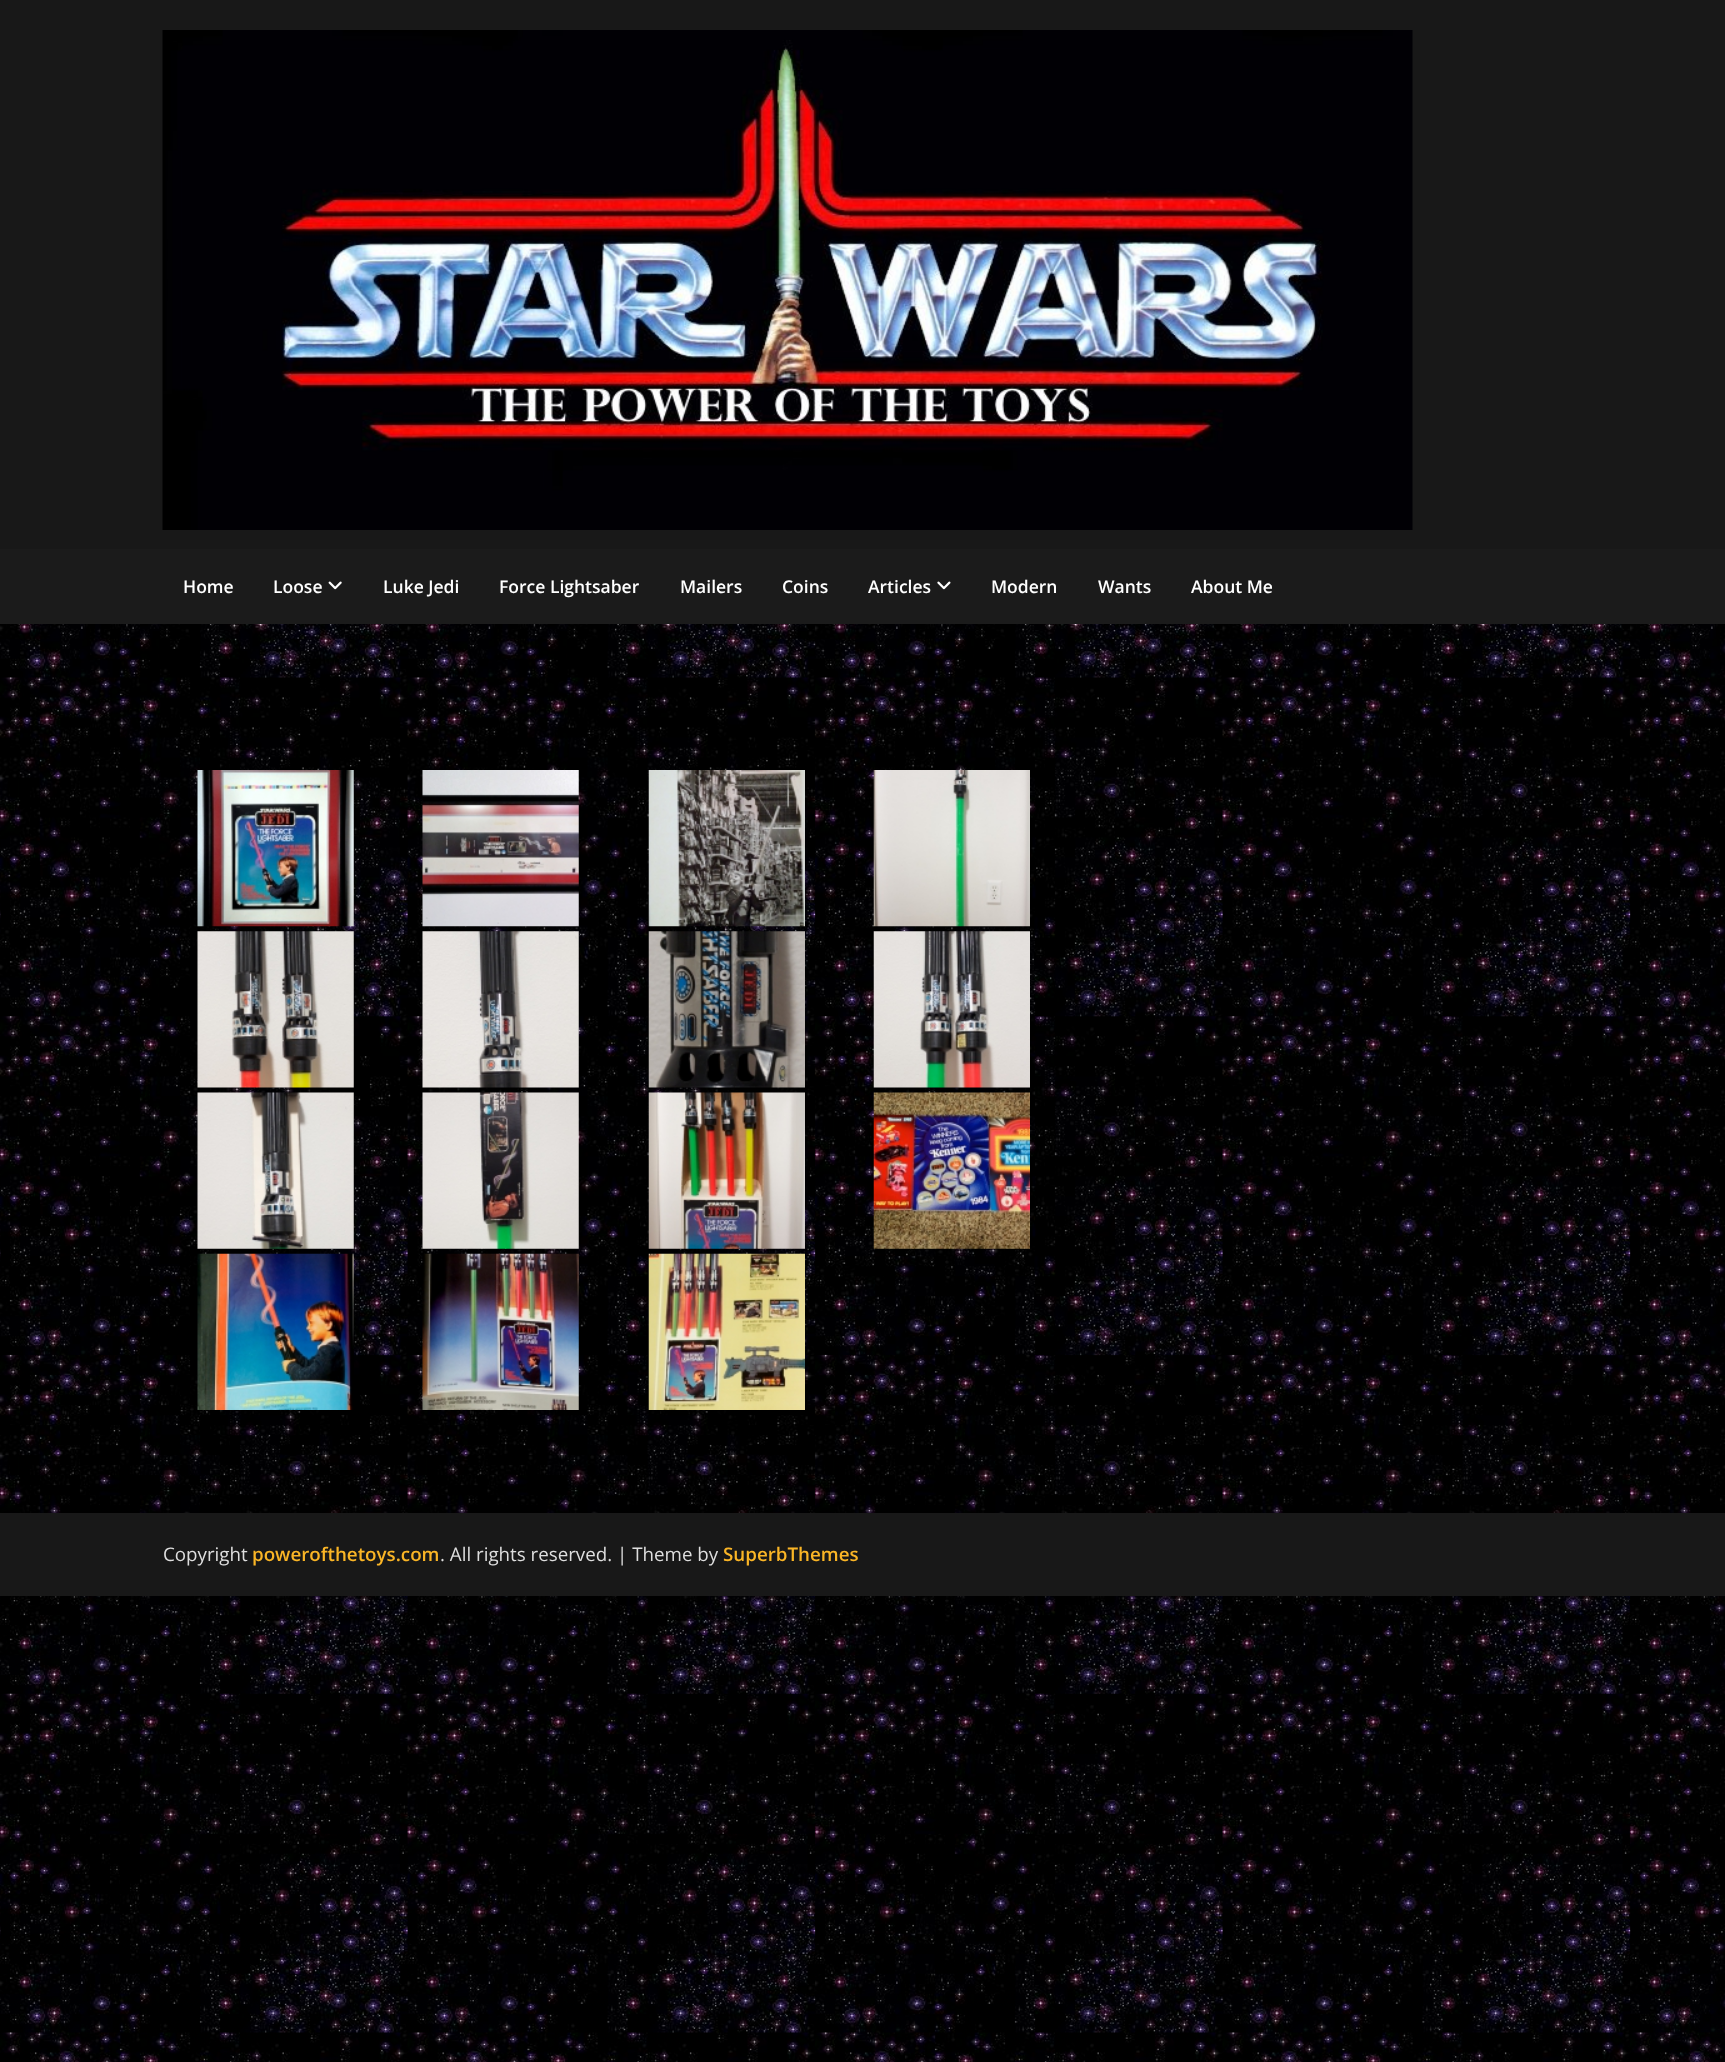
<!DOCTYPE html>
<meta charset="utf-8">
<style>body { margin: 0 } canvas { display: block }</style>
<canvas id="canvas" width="1725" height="2062"></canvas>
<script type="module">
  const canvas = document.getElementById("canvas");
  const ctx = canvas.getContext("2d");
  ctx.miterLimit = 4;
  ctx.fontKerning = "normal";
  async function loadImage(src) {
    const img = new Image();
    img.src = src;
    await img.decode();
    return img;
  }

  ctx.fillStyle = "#ffffff";
  ctx.fillRect(0, 0, 1725, 2062);
  ctx.drawImage(await loadImage("img1.png"), 0, 624, 1725, 1438);
  ctx.fillStyle = "#181818";
  ctx.fillRect(0, 0, 1725, 549);
  ctx.drawImage(await loadImage("img2.png"), 162, 30, 1251, 500);
  ctx.fillStyle = "#1b1b1b";
  ctx.fillRect(0, 549, 1725, 75);
  ctx.font = "600 17.5px Open Sans";
  ctx.fillStyle = "#ffffff";
  ctx.fillText("Home", 183, 593);
  ctx.fillText("Loose", 273, 593);
  ctx.drawImage(await loadImage("img3.png"), 328, 581, 14, 9);
  ctx.fillText("Luke Jedi", 383, 593);
  ctx.fillText("Force Lightsaber", 499, 593);
  ctx.fillText("Mailers", 680, 593);
  ctx.fillText("Coins", 782, 593);
  ctx.fillText("Articles", 868, 593);
  ctx.drawImage(await loadImage("img4.png"), 937, 581, 14, 9);
  ctx.fillText("Modern", 991, 593);
  ctx.fillText("Wants", 1098, 593);
  ctx.fillText("About Me", 1191, 593);
  ctx.drawImage(await loadImage("img5.png"), 197, 770, 157, 157);
  ctx.drawImage(await loadImage("img6.png"), 422, 770, 157, 157);
  ctx.drawImage(await loadImage("img7.png"), 648, 770, 157, 157);
  ctx.drawImage(await loadImage("img8.png"), 873, 770, 157, 157);
  ctx.drawImage(await loadImage("img9.png"), 197, 931, 157, 157);
  ctx.drawImage(await loadImage("img10.png"), 422, 931, 157, 157);
  ctx.drawImage(await loadImage("img11.png"), 648, 931, 157, 157);
  ctx.drawImage(await loadImage("img12.png"), 873, 931, 157, 157);
  ctx.drawImage(await loadImage("img13.png"), 197, 1092, 157, 157);
  ctx.drawImage(await loadImage("img14.png"), 422, 1092, 157, 157);
  ctx.drawImage(await loadImage("img15.png"), 648, 1092, 157, 157);
  ctx.drawImage(await loadImage("img16.png"), 873, 1092, 157, 157);
  ctx.drawImage(await loadImage("img17.png"), 197, 1253, 157, 157);
  ctx.drawImage(await loadImage("img18.png"), 422, 1253, 157, 157);
  ctx.drawImage(await loadImage("img19.png"), 648, 1253, 157, 157);
  ctx.fillStyle = "#181818";
  ctx.fillRect(0, 1513, 1725, 83);
  ctx.font = "18.75px Open Sans";
  ctx.fillStyle = "#dedede";
  ctx.fillText("Copyright", 163, 1561);
  ctx.font = "600 18.75px Open Sans";
  ctx.fillStyle = "#fab526";
  ctx.fillText("powerofthetoys.com", 252, 1561);
  ctx.font = "18.75px Open Sans";
  ctx.fillStyle = "#dedede";
  ctx.fillText(". All rights reserved. | Theme by", 440, 1561);
  ctx.font = "600 18.75px Open Sans";
  ctx.fillStyle = "#fab526";
  ctx.fillText("SuperbThemes", 723, 1561);
</script>
